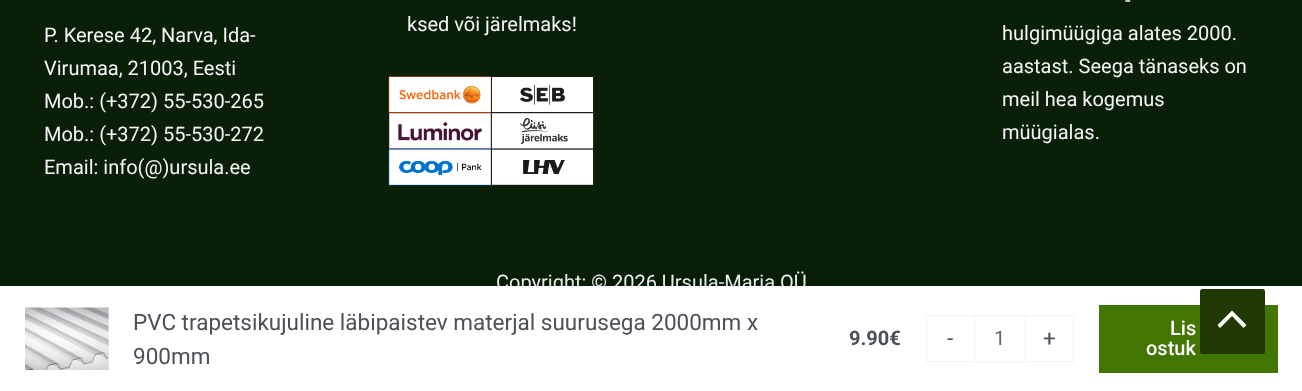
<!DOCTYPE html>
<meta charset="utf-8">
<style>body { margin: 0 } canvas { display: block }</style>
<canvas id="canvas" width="1302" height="391"></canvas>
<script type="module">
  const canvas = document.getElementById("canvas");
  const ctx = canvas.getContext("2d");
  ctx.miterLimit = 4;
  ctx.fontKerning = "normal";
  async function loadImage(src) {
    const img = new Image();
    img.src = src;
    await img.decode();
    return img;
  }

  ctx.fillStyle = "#091f08";
  ctx.fillRect(0, 0, 1302, 391);
  ctx.font = "20px Roboto";
  ctx.fillStyle = "#f5f5f5";
  ctx.fillText("P. Kerese 42, Narva, Ida-", 44, 42);
  ctx.fillText("Virumaa, 21003, Eesti", 44, 75);
  ctx.fillText("Mob.: (+372) 55-530-265", 44, 108);
  ctx.fillText("Mob.: (+372) 55-530-272", 44, 141);
  ctx.fillText("Email: info(@)ursula.ee", 44, 174);
  ctx.fillText("ksed või järelmaks!", 407, 31);
  ctx.drawImage(await loadImage("img1.png"), 388, 76, 104, 37);
  ctx.drawImage(await loadImage("img2.png"), 491, 76, 103, 37);
  ctx.drawImage(await loadImage("img3.png"), 388, 112, 104, 37);
  ctx.drawImage(await loadImage("img4.png"), 491, 112, 103, 37);
  ctx.drawImage(await loadImage("img5.png"), 388, 149, 104, 37);
  ctx.drawImage(await loadImage("img6.png"), 491, 149, 103, 37);
  ctx.fillText("-", 1125, 7);
  ctx.fillText("hulgimüügiga alates 2000.", 1002, 40);
  ctx.fillText("aastast. Seega tänaseks on", 1002, 73);
  ctx.fillText("meil hea kogemus", 1002, 106);
  ctx.fillText("müügialas.", 1002, 139);
  ctx.fillText("Copyright: © 2026 Ursula-Maria OÜ", 496, 289);
  ctx.fillStyle = "rgba(0, 0, 0, 0.06)";
  ctx.filter = "blur(5.5px)";
  ctx.beginPath();
  ctx.rect(0, 285, 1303, 105);
  ctx.fill();
  ctx.filter = "none";
  ctx.fillStyle = "rgba(0, 0, 0, 0.1)";
  ctx.filter = "blur(6px)";
  ctx.beginPath();
  ctx.rect(0, 285, 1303, 105);
  ctx.fill();
  ctx.filter = "none";
  ctx.fillStyle = "#ffffff";
  ctx.fillRect(0, 286, 1302, 105);
  ctx.drawImage(await loadImage("img7.png"), 25, 307, 84, 63);
  ctx.font = "22.5px Roboto";
  ctx.fillStyle = "#4b4f58";
  ctx.fillText("PVC trapetsikujuline läbipaistev materjal suurusega 2000mm x", 133, 330);
  ctx.fillText("900mm", 133, 364);
  ctx.font = "bold 20px Roboto";
  ctx.fillText("9.90€", 849, 345);
  ctx.fillStyle = "#f2f5f7";
  ctx.fillRect(926, 315, 48, 1);
  ctx.fillRect(926, 361, 48, 1);
  ctx.fillRect(926, 315, 1, 48);
  ctx.font = "22.5px Roboto";
  ctx.fillStyle = "#4b4f58";
  ctx.fillText("-", 947, 346);
  ctx.strokeStyle = "#f2f5f7";
  ctx.strokeRect(974.5, 315.5, 51, 47);
  ctx.font = "20px Roboto";
  ctx.fillStyle = "#666666";
  ctx.fillText("1", 994, 345);
  ctx.fillStyle = "#f2f5f7";
  ctx.fillRect(1026, 315, 48, 1);
  ctx.fillRect(1073, 315, 1, 48);
  ctx.fillRect(1026, 361, 48, 1);
  ctx.font = "22.5px Roboto";
  ctx.fillStyle = "#4b4f58";
  ctx.fillText("+", 1043, 346);
  ctx.fillStyle = "#427501";
  ctx.fillRect(1099, 305, 179, 68);
  ctx.font = "500 20px Roboto";
  ctx.fillStyle = "#ffffff";
  ctx.fillText("Lis", 1170, 335);
  ctx.fillText("ostuk", 1146, 355);
  ctx.fillStyle = "#203801";
  ctx.beginPath();
  ctx.roundRect(1200, 289, 65, 65, 2.5);
  ctx.fill();
  ctx.fillStyle = "#ffffff";
  ctx.beginPath();
  ctx.moveTo(1246.5, 325);
  ctx.lineTo(1232, 310.5);
  ctx.lineTo(1217.5, 325);
  ctx.lineTo(1220, 328);
  ctx.lineTo(1232, 316);
  ctx.lineTo(1243.5, 328);
  ctx.closePath();
  ctx.fill();
</script>
